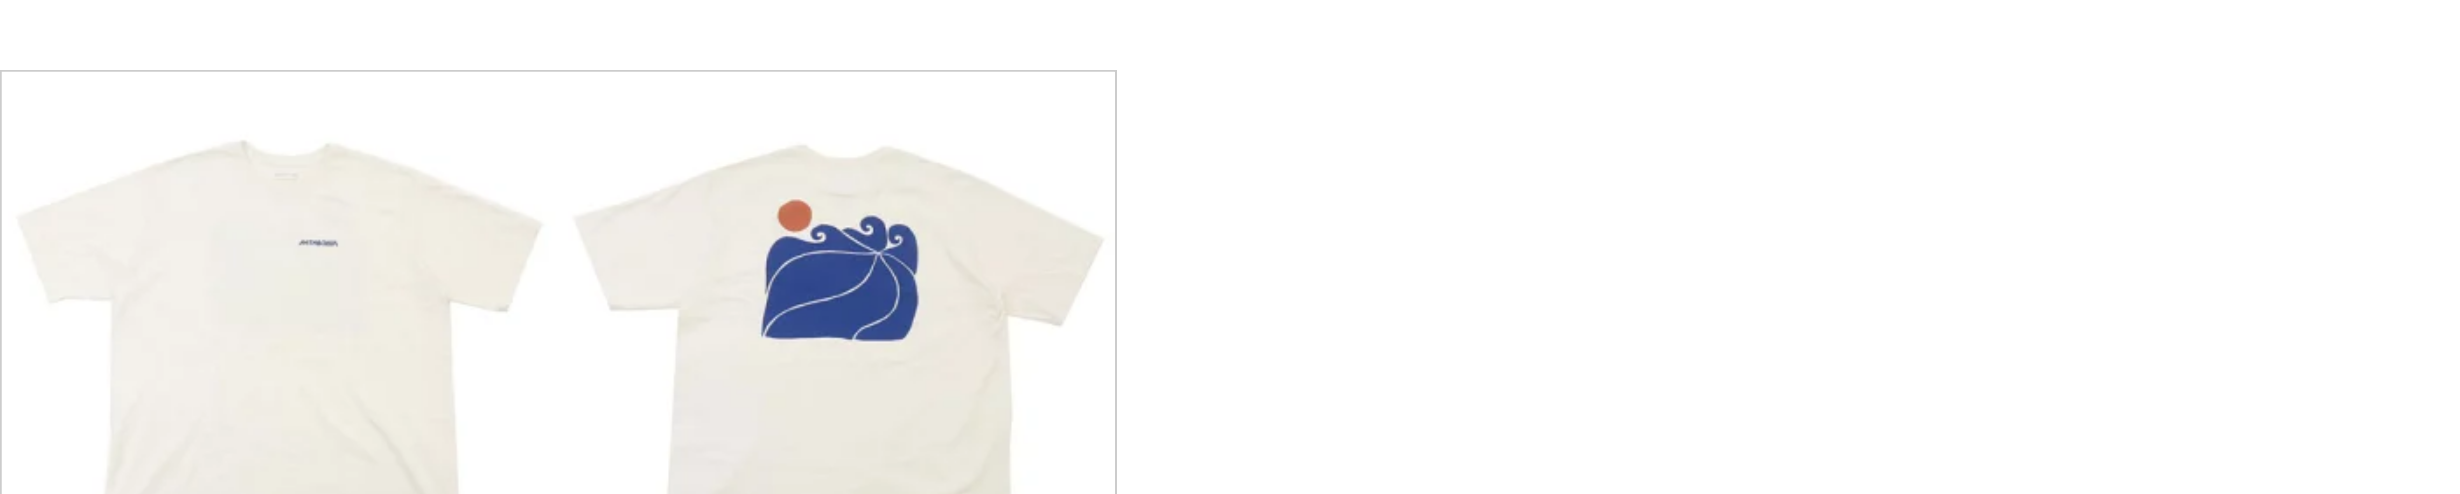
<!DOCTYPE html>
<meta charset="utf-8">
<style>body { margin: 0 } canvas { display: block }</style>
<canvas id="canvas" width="2460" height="494"></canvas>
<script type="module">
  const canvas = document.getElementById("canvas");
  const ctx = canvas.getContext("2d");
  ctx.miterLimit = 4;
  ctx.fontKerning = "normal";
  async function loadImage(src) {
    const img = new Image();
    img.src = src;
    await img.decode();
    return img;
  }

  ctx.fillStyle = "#ffffff";
  ctx.fillRect(0, 0, 2460, 494);
  ctx.strokeStyle = "#cccccc";
  ctx.lineWidth = 2;
  ctx.strokeRect(1, 71, 1115, 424);
  ctx.drawImage(await loadImage("img1.png"), 1, 71, 1114, 423);
</script>
